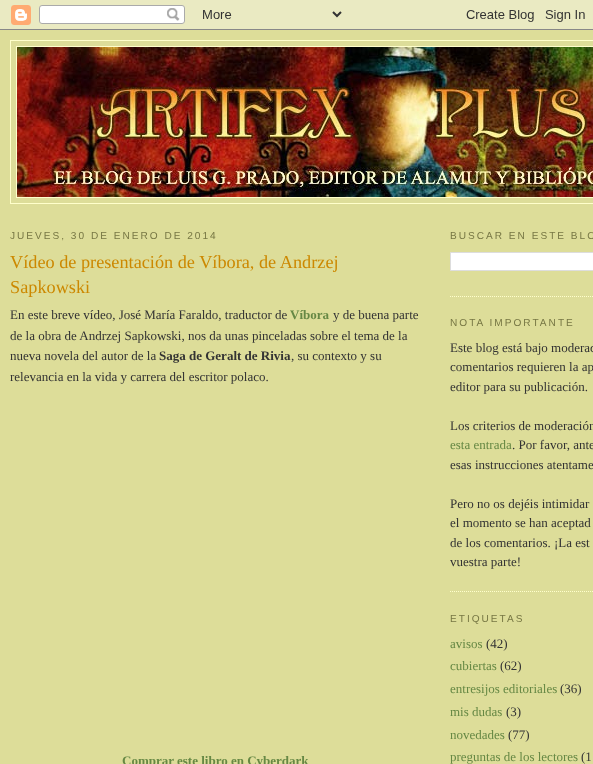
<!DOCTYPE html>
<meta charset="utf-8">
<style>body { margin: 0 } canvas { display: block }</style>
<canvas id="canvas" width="593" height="764"></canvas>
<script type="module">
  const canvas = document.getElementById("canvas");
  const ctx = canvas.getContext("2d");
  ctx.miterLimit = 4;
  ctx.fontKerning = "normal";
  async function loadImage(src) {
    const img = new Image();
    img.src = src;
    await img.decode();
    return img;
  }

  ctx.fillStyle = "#dddd99";
  ctx.fillRect(0, 0, 593, 764);
  ctx.drawImage(await loadImage("img1.png"), 0, 0, 593, 30);
  ctx.strokeStyle = "#ffffcc";
  ctx.strokeRect(10.5, 40.5, 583, 163);
  ctx.strokeRect(16.5, 46.5, 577, 151);
  ctx.drawImage(await loadImage("img2.png"), 17, 47, 576, 150);
  ctx.letterSpacing = "2px";
  ctx.font = "10.1px Liberation Sans";
  ctx.fillStyle = "#777744";
  ctx.fillText("JUEVES, 30 DE ENERO DE 2014", 10, 239);
  ctx.letterSpacing = "0px";
  ctx.font = "18.25px Liberation Serif";
  ctx.fillStyle = "#cc8800";
  ctx.fillText("Vídeo de presentación de Víbora, de Andrzej", 10, 268);
  ctx.fillText("Sapkowski", 10, 293);
  ctx.font = "13px Liberation Serif";
  ctx.fillStyle = "#333333";
  ctx.fillText("En este breve vídeo, José María Faraldo, traductor de", 10, 319);
  ctx.font = "bold 13px Liberation Serif";
  ctx.fillStyle = "#668844";
  ctx.fillText("Víbora", 290, 319);
  ctx.font = "13px Liberation Serif";
  ctx.fillStyle = "#333333";
  ctx.fillText("y de buena parte", 333, 319);
  ctx.fillText("de la obra de Andrzej Sapkowski, nos da unas pinceladas sobre el tema de la", 10, 340);
  ctx.fillText("nueva novela del autor de la", 10, 360);
  ctx.font = "bold 13px Liberation Serif";
  ctx.fillText("Saga de Geralt de Rivia", 159, 360);
  ctx.font = "13px Liberation Serif";
  ctx.fillText(", su contexto y su", 291, 360);
  ctx.fillText("relevancia en la vida y carrera del escritor polaco.", 10, 381);
  ctx.font = "bold 13px Liberation Serif";
  ctx.fillStyle = "#668844";
  ctx.fillText("Comprar este libro en Cyberdark", 122, 765);
  ctx.beginPath();
  ctx.moveTo(450, 296.5);
  ctx.lineTo(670, 296.5);
  ctx.setLineDash([1, 1]);
  ctx.stroke();
  ctx.letterSpacing = "2px";
  ctx.font = "10.1px Liberation Sans";
  ctx.fillStyle = "#777744";
  ctx.fillText("BUSCAR EN ESTE BLO", 450, 239);
  ctx.fillStyle = "#ffffff";
  ctx.beginPath();
  ctx.rect(450.5, 252.5, 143, 18);
  ctx.fill();
  ctx.strokeStyle = "#dddddd";
  ctx.setLineDash([]);
  ctx.stroke();
  ctx.beginPath();
  ctx.moveTo(450, 591.5);
  ctx.lineTo(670, 591.5);
  ctx.strokeStyle = "#ffffcc";
  ctx.setLineDash([1, 1]);
  ctx.stroke();
  ctx.fillStyle = "#777744";
  ctx.fillText("NOTA IMPORTANTE", 450, 326);
  ctx.letterSpacing = "0px";
  ctx.font = "13px Liberation Serif";
  ctx.fillStyle = "#333333";
  ctx.fillText("Este blog está bajo moderac", 450, 352);
  ctx.fillText("comentarios requieren la ap", 450, 371);
  ctx.fillText("editor para su publicación.", 450, 391);
  ctx.fillText("Los criterios de moderación", 450, 430);
  ctx.fillStyle = "#668844";
  ctx.fillText("esta entrada", 450, 449);
  ctx.fillStyle = "#333333";
  ctx.fillText(". Por favor, ante", 512, 449);
  ctx.fillText("esas instrucciones atentame", 450, 469);
  ctx.fillText("Pero no os dejéis intimidar", 450, 508);
  ctx.fillText("el momento se han aceptad", 450, 527);
  ctx.fillText("de los comentarios. ¡La est", 450, 547);
  ctx.fillText("vuestra parte!", 450, 566);
  ctx.letterSpacing = "2px";
  ctx.font = "10.1px Liberation Sans";
  ctx.fillStyle = "#777744";
  ctx.fillText("ETIQUETAS", 450, 622);
  ctx.letterSpacing = "0px";
  ctx.font = "13px Liberation Serif";
  ctx.fillStyle = "#668844";
  ctx.fillText("avisos", 450, 648);
  ctx.fillStyle = "#333333";
  ctx.fillText("(42)", 486, 648);
  ctx.fillStyle = "#668844";
  ctx.fillText("cubiertas", 450, 670);
  ctx.fillStyle = "#333333";
  ctx.fillText("(62)", 500, 670);
  ctx.fillStyle = "#668844";
  ctx.fillText("entresijos editoriales", 450, 693);
  ctx.fillStyle = "#333333";
  ctx.fillText("(36)", 560, 693);
  ctx.fillStyle = "#668844";
  ctx.fillText("mis dudas", 450, 716);
  ctx.fillStyle = "#333333";
  ctx.fillText("(3)", 506, 716);
  ctx.fillStyle = "#668844";
  ctx.fillText("novedades", 450, 739);
  ctx.fillStyle = "#333333";
  ctx.fillText("(77)", 508, 739);
  ctx.fillStyle = "#668844";
  ctx.fillText("preguntas de los lectores", 450, 761);
  ctx.fillStyle = "#333333";
  ctx.fillText("(1", 581, 761);
</script>
